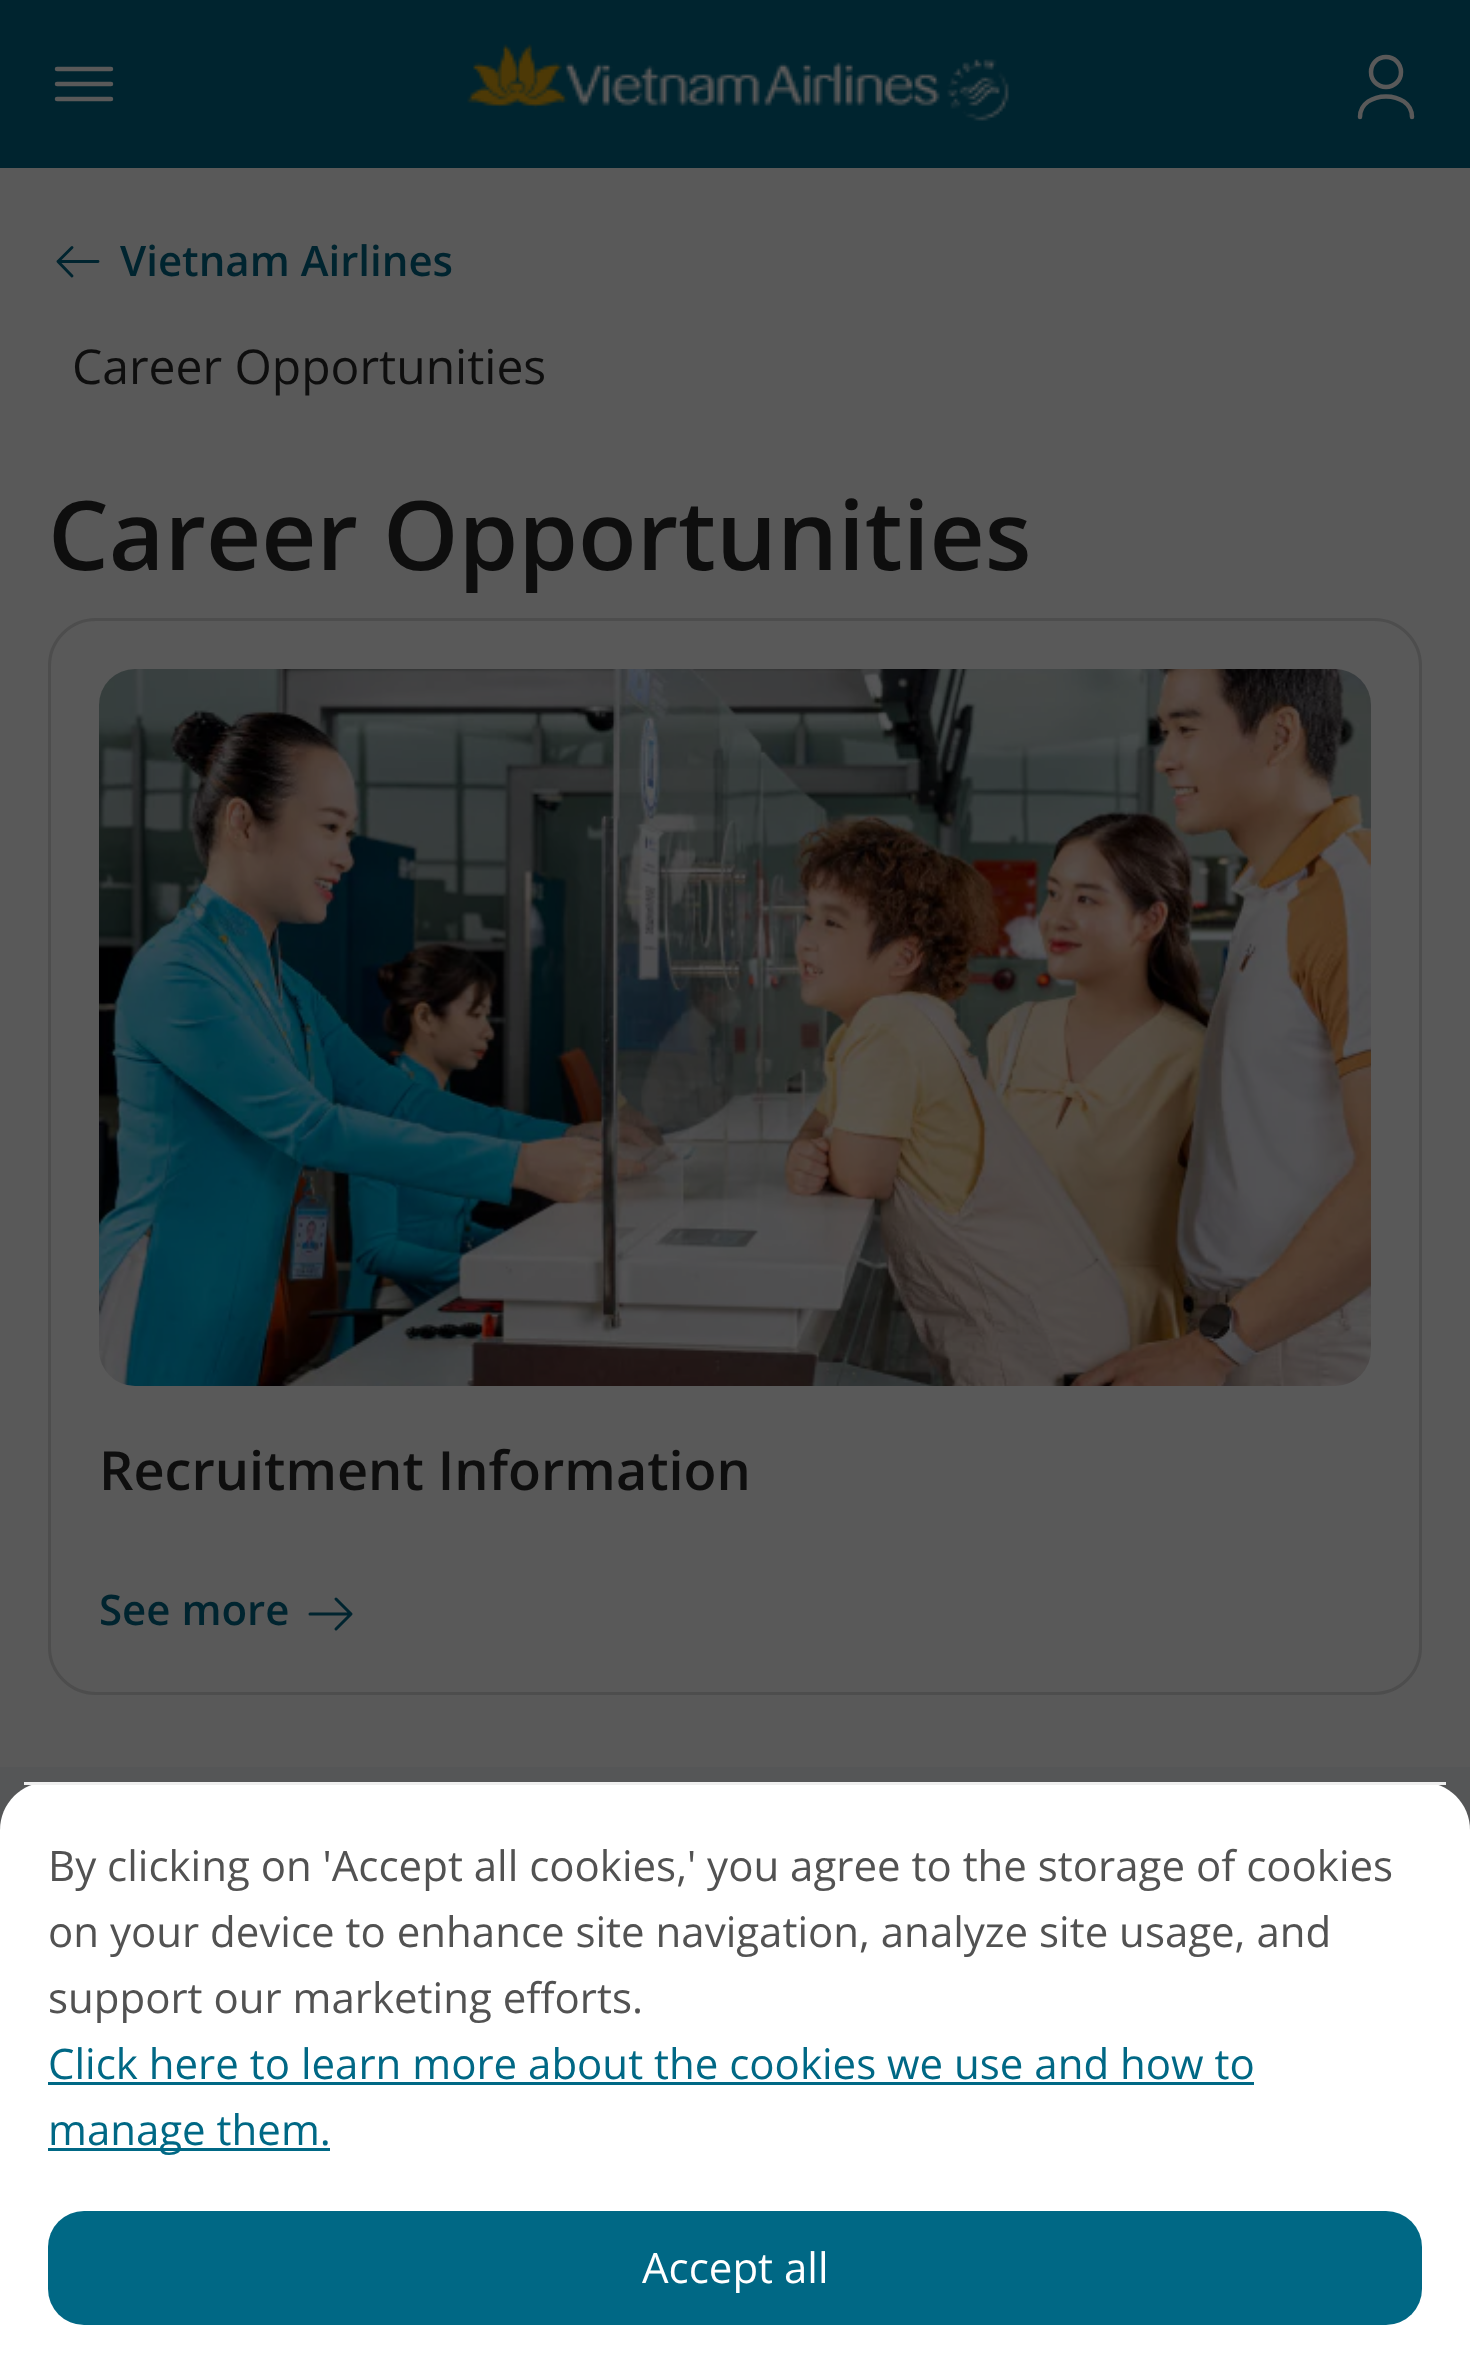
<!DOCTYPE html>
<meta charset="utf-8">
<style>body { margin: 0 } canvas { display: block }</style>
<canvas id="canvas" width="1470" height="2371"></canvas>
<script type="module">
  const canvas = document.getElementById("canvas");
  const ctx = canvas.getContext("2d");
  ctx.miterLimit = 4;
  ctx.fontKerning = "normal";
  async function loadImage(src) {
    const img = new Image();
    img.src = src;
    await img.decode();
    return img;
  }

  ctx.fillStyle = "#595959";
  ctx.fillRect(0, 0, 1470, 2371);
  ctx.fillStyle = "#00242f";
  ctx.fillRect(0, 0, 1470, 168);
  ctx.beginPath();
  ctx.moveTo(57, 69);
  ctx.lineTo(111, 69);
  ctx.moveTo(57, 84);
  ctx.lineTo(111, 84);
  ctx.moveTo(57, 99);
  ctx.lineTo(111, 99);
  ctx.strokeStyle = "#595959";
  ctx.lineWidth = 4.5;
  ctx.lineCap = "round";
  ctx.stroke();
  ctx.drawImage(await loadImage("img1.png"), 467, 44, 542, 77);
  ctx.beginPath();
  ctx.moveTo(1386, 87);
  ctx.bezierCurveTo(1394.5, 87, 1401, 80.5, 1401, 72);
  ctx.bezierCurveTo(1401, 63.5, 1394.5, 57, 1386, 57);
  ctx.bezierCurveTo(1377.5, 57, 1371, 63.5, 1371, 72);
  ctx.bezierCurveTo(1371, 80.5, 1377.5, 87, 1386, 87);
  ctx.closePath();
  ctx.lineJoin = "round";
  ctx.stroke();
  ctx.beginPath();
  ctx.moveTo(1412, 117);
  ctx.bezierCurveTo(1412, 89.5, 1360, 89.5, 1360, 117);
  ctx.stroke();
  ctx.beginPath();
  ctx.moveTo(72, 247.5);
  ctx.lineTo(58, 261.5);
  ctx.lineTo(72, 276);
  ctx.moveTo(98, 261.5);
  ctx.lineTo(58, 261.5);
  ctx.strokeStyle = "#00242f";
  ctx.lineWidth = 2.9;
  ctx.stroke();
  ctx.font = "600 42px Open Sans";
  ctx.fillText("Vietnam Airlines", 120, 276);
  ctx.font = "48px Open Sans";
  ctx.fillStyle = "#0e0e0e";
  ctx.fillText("Career Opportunities", 72, 384);
  ctx.font = "600 96px Open Sans";
  ctx.fillText("Career Opportunities", 48, 570);
  ctx.beginPath();
  ctx.roundRect(49.5, 619.5, 1371, 1074, 46.5);
  ctx.strokeStyle = "#4d4d4d";
  ctx.lineWidth = 3;
  ctx.lineJoin = "miter";
  ctx.stroke();
  ctx.drawImage(await loadImage("img2.png"), 99, 669, 1272, 717);
  ctx.font = "600 54px Open Sans";
  ctx.fillText("Recruitment Information", 99, 1490);
  ctx.font = "600 42px Open Sans";
  ctx.fillStyle = "#00242f";
  ctx.fillText("See more", 99, 1625);
  ctx.beginPath();
  ctx.moveTo(336, 1599);
  ctx.lineTo(351, 1614);
  ctx.lineTo(336, 1629);
  ctx.moveTo(310, 1614);
  ctx.lineTo(350, 1614);
  ctx.strokeStyle = "#00242f";
  ctx.lineJoin = "round";
  ctx.stroke();
  ctx.fillStyle = "#555657";
  ctx.fillRect(0, 1767, 1470, 63);
  ctx.fillStyle = "#ffffff";
  ctx.beginPath();
  ctx.moveTo(48, 1782);
  ctx.lineTo(1422, 1782);
  ctx.bezierCurveTo(1448.5, 1782, 1470, 1803.5, 1470, 1830);
  ctx.lineTo(1470, 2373);
  ctx.lineTo(0, 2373);
  ctx.lineTo(0, 1830);
  ctx.bezierCurveTo(0, 1803.5, 21.5, 1782, 48, 1782);
  ctx.closePath();
  ctx.fill();
  ctx.fillStyle = "#efefef";
  ctx.fillRect(24, 1782, 1422, 3);
  ctx.font = "42px Open Sans";
  ctx.fillStyle = "#525252";
  ctx.fillText("By clicking on 'Accept all cookies,' you agree to the storage of cookies", 48, 1881);
  ctx.fillText("on your device to enhance site navigation, analyze site usage, and", 48, 1947);
  ctx.fillText("support our marketing efforts.", 48, 2013);
  ctx.fillStyle = "#006885";
  ctx.fillText("Click here to learn more about the cookies we use and how to", 48, 2079);
  ctx.fillRect(48, 2082, 1206, 3);
  ctx.fillRect(48, 2148, 282, 3);
  ctx.fillText("manage them.", 48, 2145);
  ctx.beginPath();
  ctx.roundRect(48, 2211, 1374, 114, 36);
  ctx.fill();
  ctx.fillStyle = "#ffffff";
  ctx.fillText("Accept all", 642, 2283);
</script>
